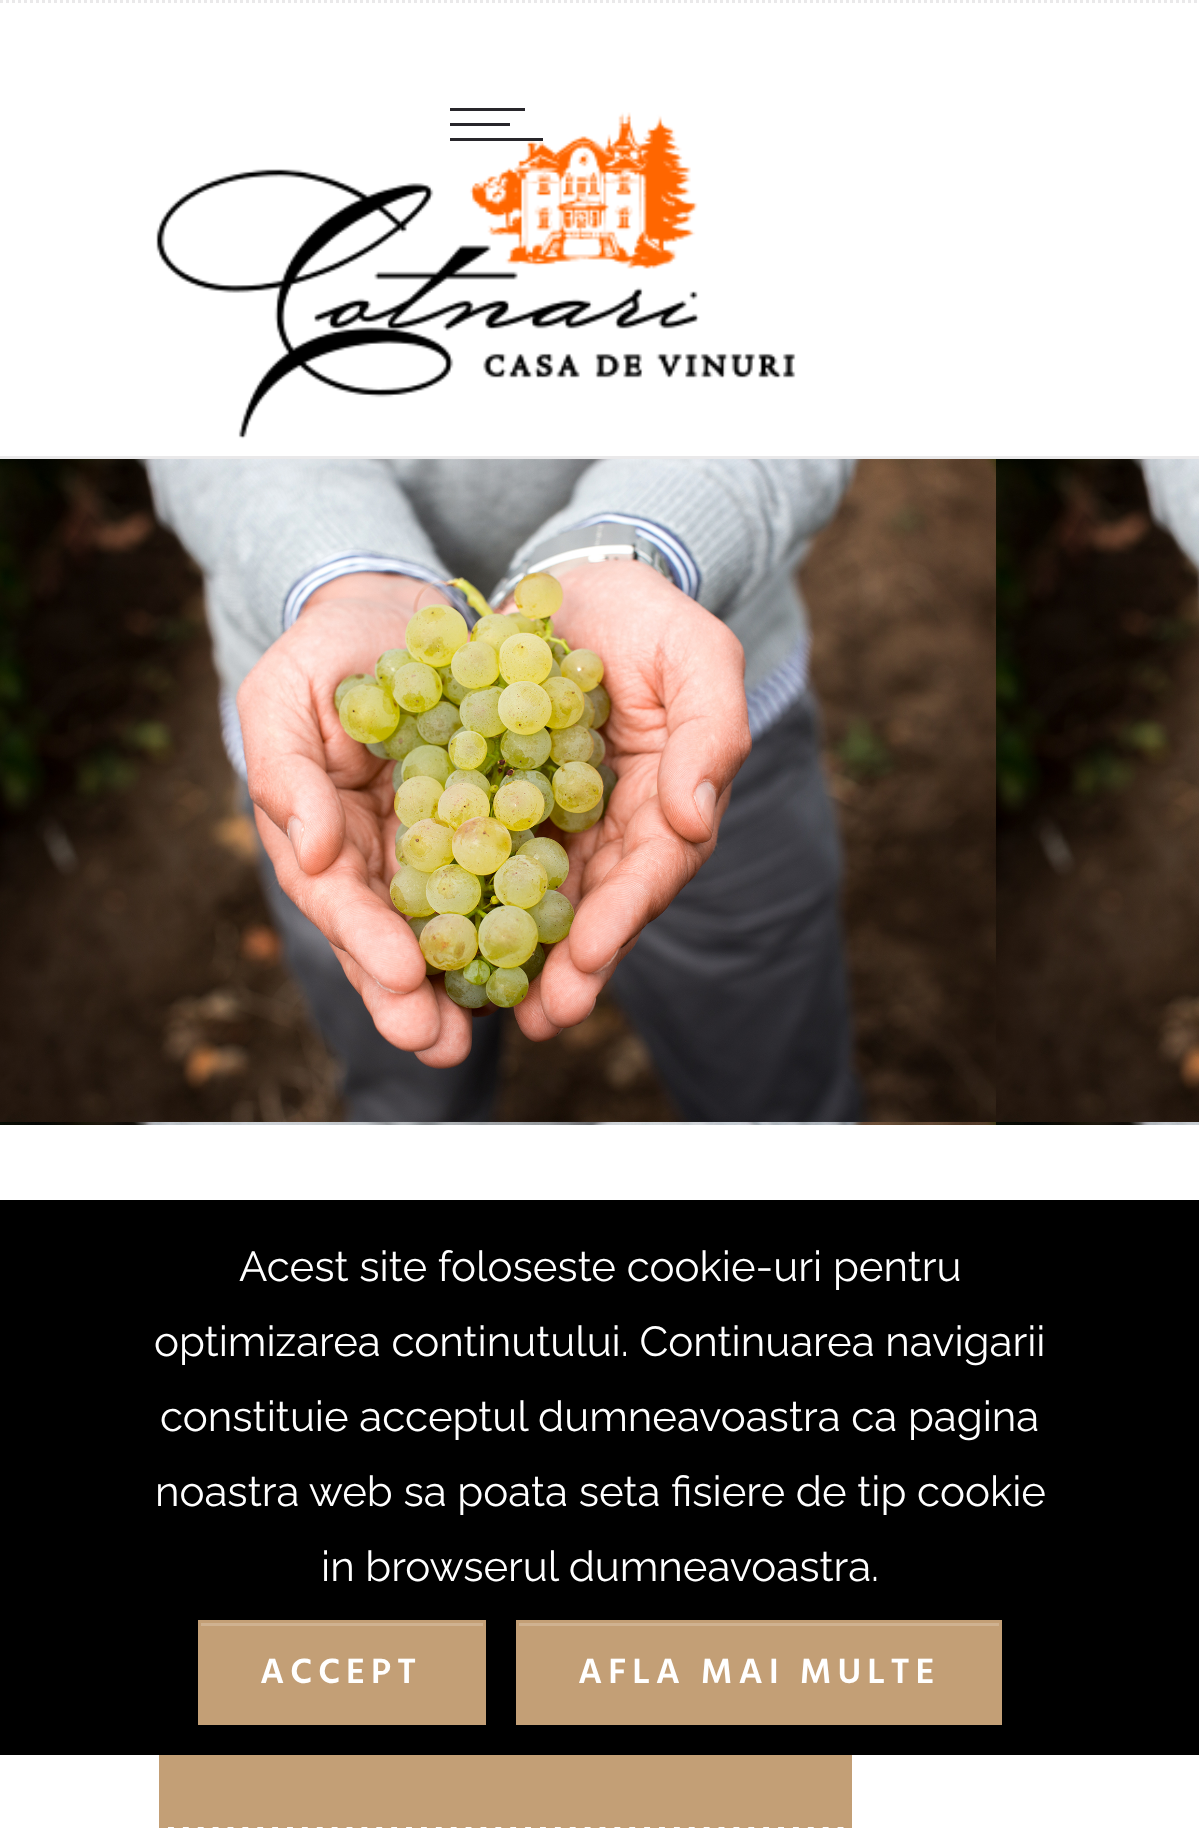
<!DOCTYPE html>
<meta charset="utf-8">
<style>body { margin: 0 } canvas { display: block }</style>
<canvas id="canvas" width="1199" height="1845"></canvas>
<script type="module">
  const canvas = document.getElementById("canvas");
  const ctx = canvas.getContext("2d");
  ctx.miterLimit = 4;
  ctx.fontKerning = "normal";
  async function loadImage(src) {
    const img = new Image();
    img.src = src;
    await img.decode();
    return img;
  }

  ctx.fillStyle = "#ffffff";
  ctx.fillRect(0, 0, 1199, 1845);
  ctx.fillStyle = "#eae9ea";
  ctx.fillRect(0, 456, 1199, 3);
  ctx.beginPath();
  ctx.moveTo(0, 1.5);
  ctx.lineTo(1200, 1.5);
  ctx.strokeStyle = "#eae9ea";
  ctx.lineWidth = 3;
  ctx.setLineDash([3, 3]);
  ctx.stroke();
  ctx.fillStyle = "#28262b";
  ctx.fillRect(450, 108, 75, 3);
  ctx.drawImage(await loadImage("img1.png"), 156, 112, 640, 327);
  ctx.fillRect(450, 123, 60, 3);
  ctx.fillRect(450, 138, 93, 3);
  ctx.drawImage(await loadImage("img2.png"), 0, 459, 1199, 666);
  ctx.fillStyle = "rgba(27, 27, 27, 0.1)";
  ctx.fillRect(0, 1122, 1199, 3);
  ctx.fillStyle = "#c39f76";
  ctx.fillRect(159, 1755, 693, 72);
  ctx.beginPath();
  ctx.moveTo(850.5, 1687);
  ctx.lineTo(850.5, 1828);
  ctx.strokeStyle = "#c39f76";
  ctx.setLineDash([9, 5.67]);
  ctx.stroke();
  ctx.beginPath();
  ctx.moveTo(159, 1826.5);
  ctx.lineTo(852, 1826.5);
  ctx.setLineDash([9, 5.88]);
  ctx.stroke();
  ctx.fillStyle = "#000000";
  ctx.fillRect(0, 1200, 1199, 555);
  ctx.font = "42px Raleway";
  ctx.fillStyle = "#ffffff";
  ctx.fillText("Acest site foloseste cookie-uri pentru", 239, 1281);
  ctx.fillText("optimizarea continutului. Continuarea navigarii", 154, 1356);
  ctx.fillText("constituie acceptul dumneavoastra ca pagina", 160, 1431);
  ctx.fillText("noastra web sa poata seta fisiere de tip cookie", 155, 1506);
  ctx.fillText("in browserul dumneavoastra.", 321, 1581);
  ctx.fillStyle = "#c39f76";
  ctx.fillRect(198, 1620, 288, 105);
  ctx.fillStyle = "#cfb291";
  ctx.fillRect(201, 1623, 282, 3);
  ctx.letterSpacing = "6px";
  ctx.font = "600 36px Hind";
  ctx.fillStyle = "#ffffff";
  ctx.fillText("ACCEPT", 260, 1683);
  ctx.fillStyle = "#c39f76";
  ctx.fillRect(516, 1620, 486, 105);
  ctx.fillStyle = "#cfb291";
  ctx.fillRect(519, 1623, 480, 3);
  ctx.fillStyle = "#ffffff";
  ctx.fillText("AFLA MAI MULTE", 578, 1683);
</script>
